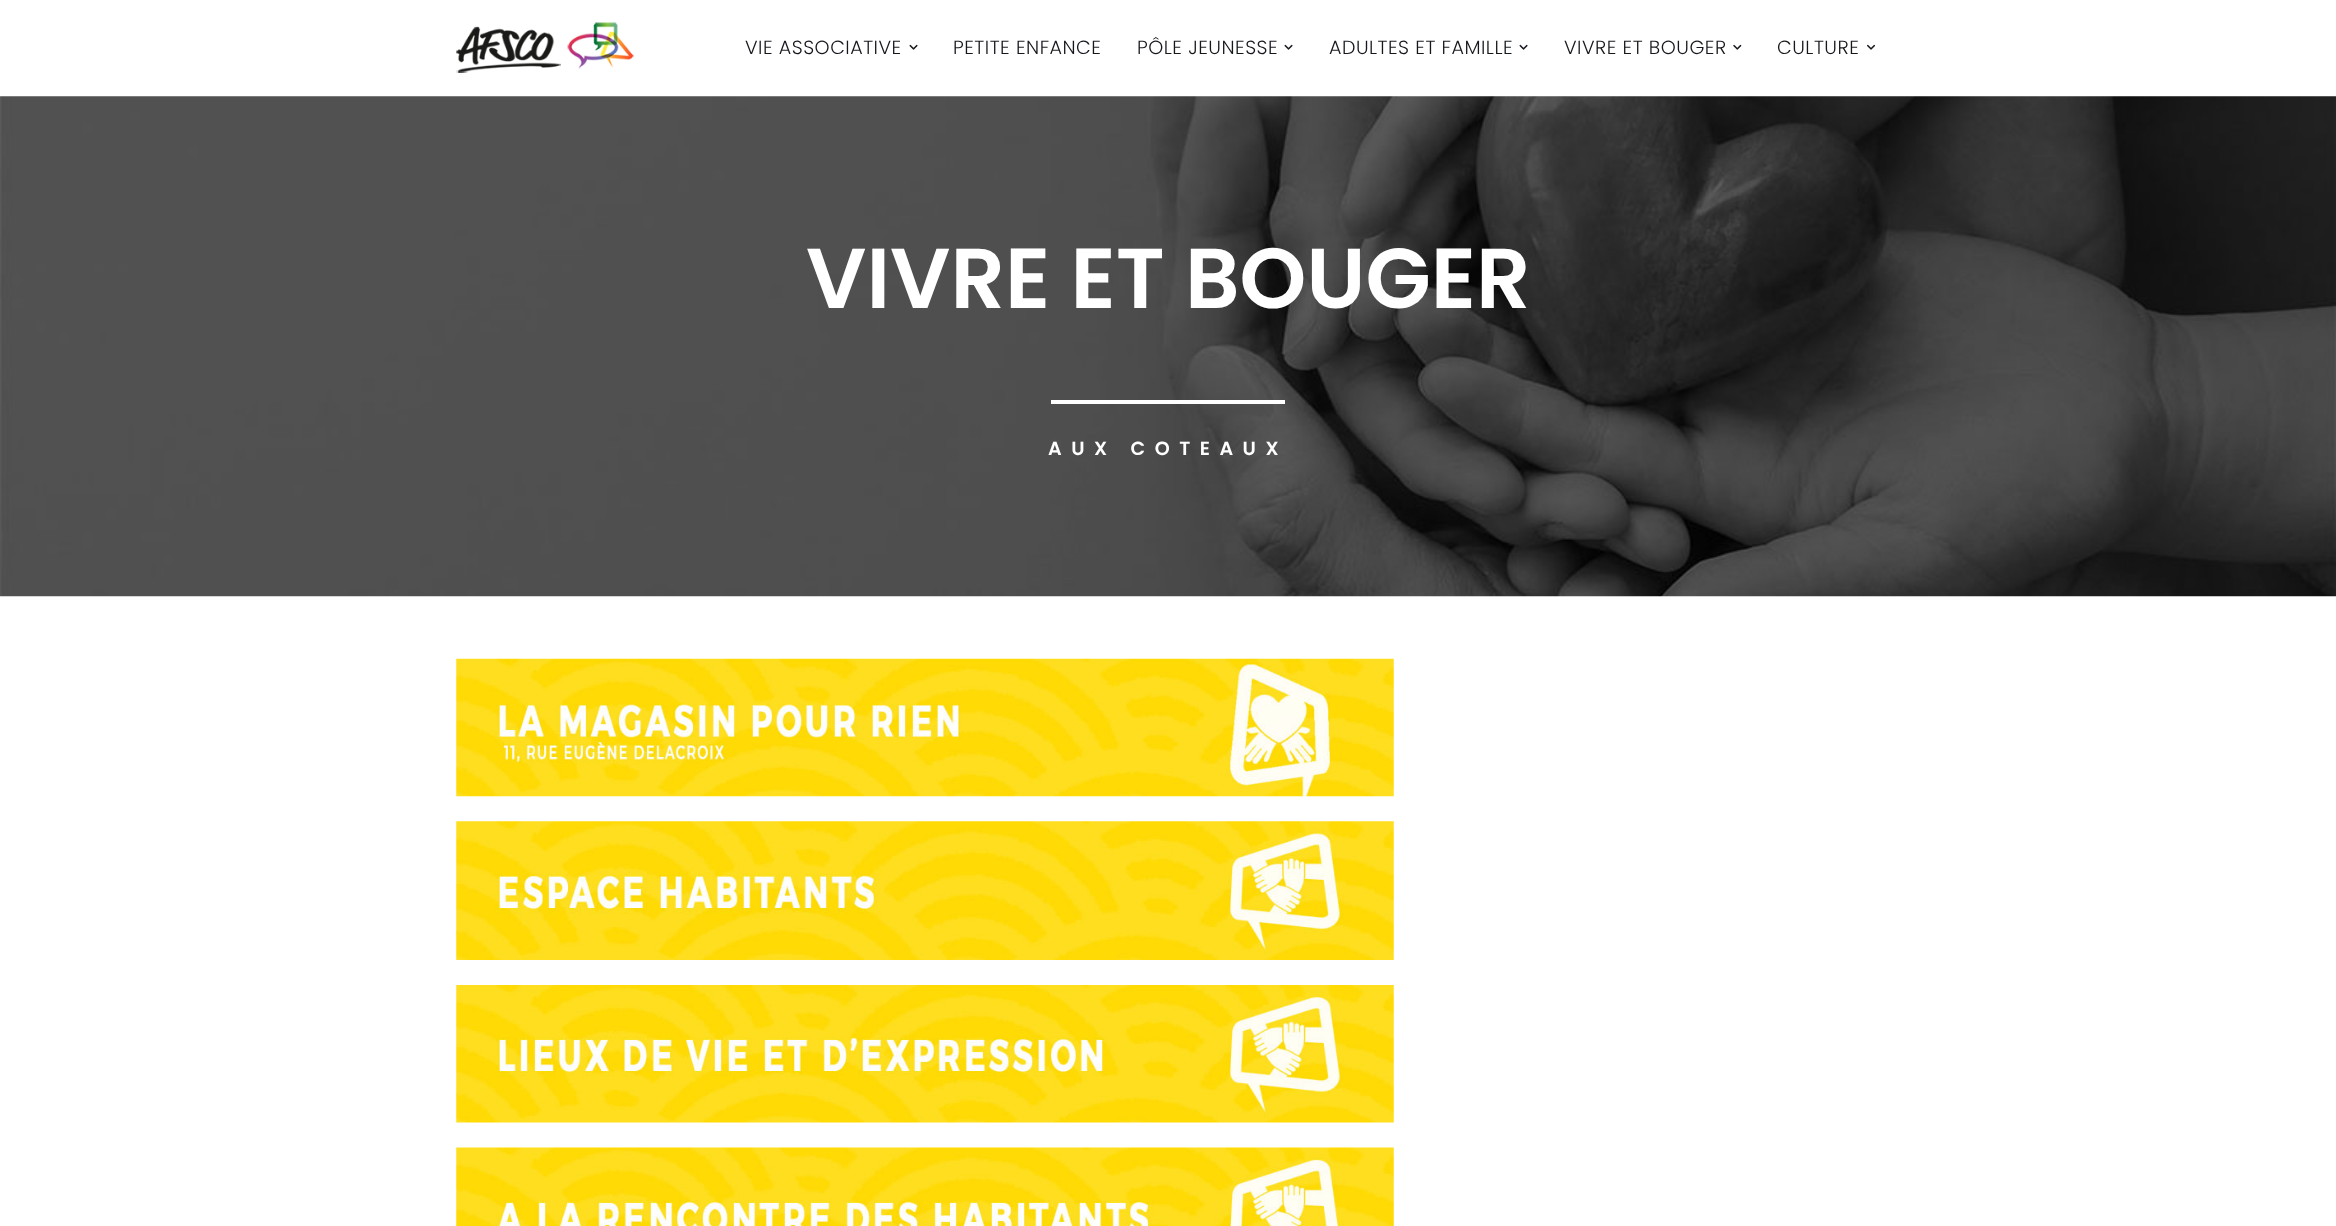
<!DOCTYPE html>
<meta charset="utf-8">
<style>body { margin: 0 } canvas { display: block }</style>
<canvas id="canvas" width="2336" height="1226"></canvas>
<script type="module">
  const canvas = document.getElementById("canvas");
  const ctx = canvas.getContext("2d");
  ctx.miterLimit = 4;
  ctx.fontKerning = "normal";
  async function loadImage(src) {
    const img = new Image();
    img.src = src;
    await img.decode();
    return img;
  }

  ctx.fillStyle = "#ffffff";
  ctx.fillRect(0, 0, 2336, 1226);
  ctx.drawImage(await loadImage("img1.png"), 456, 22, 178, 51);
  ctx.letterSpacing = "0.5px";
  ctx.font = "300 19.1px Poppins";
  ctx.fillStyle = "#14171c";
  ctx.fillText("VIE ASSOCIATIVE", 745, 54);
  ctx.drawImage(await loadImage("img2.png"), 909, 44, 9, 6);
  ctx.fillText("PETITE ENFANCE", 953, 54);
  ctx.fillText("PÔLE JEUNESSE", 1137, 54);
  ctx.drawImage(await loadImage("img2.png"), 1284, 44, 9, 6);
  ctx.fillText("ADULTES ET FAMILLE", 1329, 54);
  ctx.drawImage(await loadImage("img2.png"), 1519, 44, 9, 6);
  ctx.fillText("VIVRE ET BOUGER", 1564, 54);
  ctx.drawImage(await loadImage("img3.png"), 1733, 44, 9, 6);
  ctx.fillText("CULTURE", 1777, 54);
  ctx.drawImage(await loadImage("img4.png"), 1867, 44, 9, 6);
  ctx.drawImage(await loadImage("img5.png"), 0, 96, 2336, 501);
  ctx.letterSpacing = "0px";
  ctx.font = "600 85px Poppins";
  ctx.fillStyle = "#ffffff";
  ctx.fillText("VIVRE ET BOUGER", 806, 308);
  ctx.fillRect(1051, 400, 234, 4);
  ctx.letterSpacing = "9.5px";
  ctx.font = "600 19.1px Poppins";
  ctx.fillText("AUX COTEAUX", 1048, 455);
  ctx.drawImage(await loadImage("img6.png"), 456, 658, 938, 139);
  ctx.drawImage(await loadImage("img7.png"), 456, 821, 938, 139);
  ctx.drawImage(await loadImage("img8.png"), 456, 985, 938, 138);
  ctx.drawImage(await loadImage("img9.png"), 456, 1147, 938, 79);
</script>
